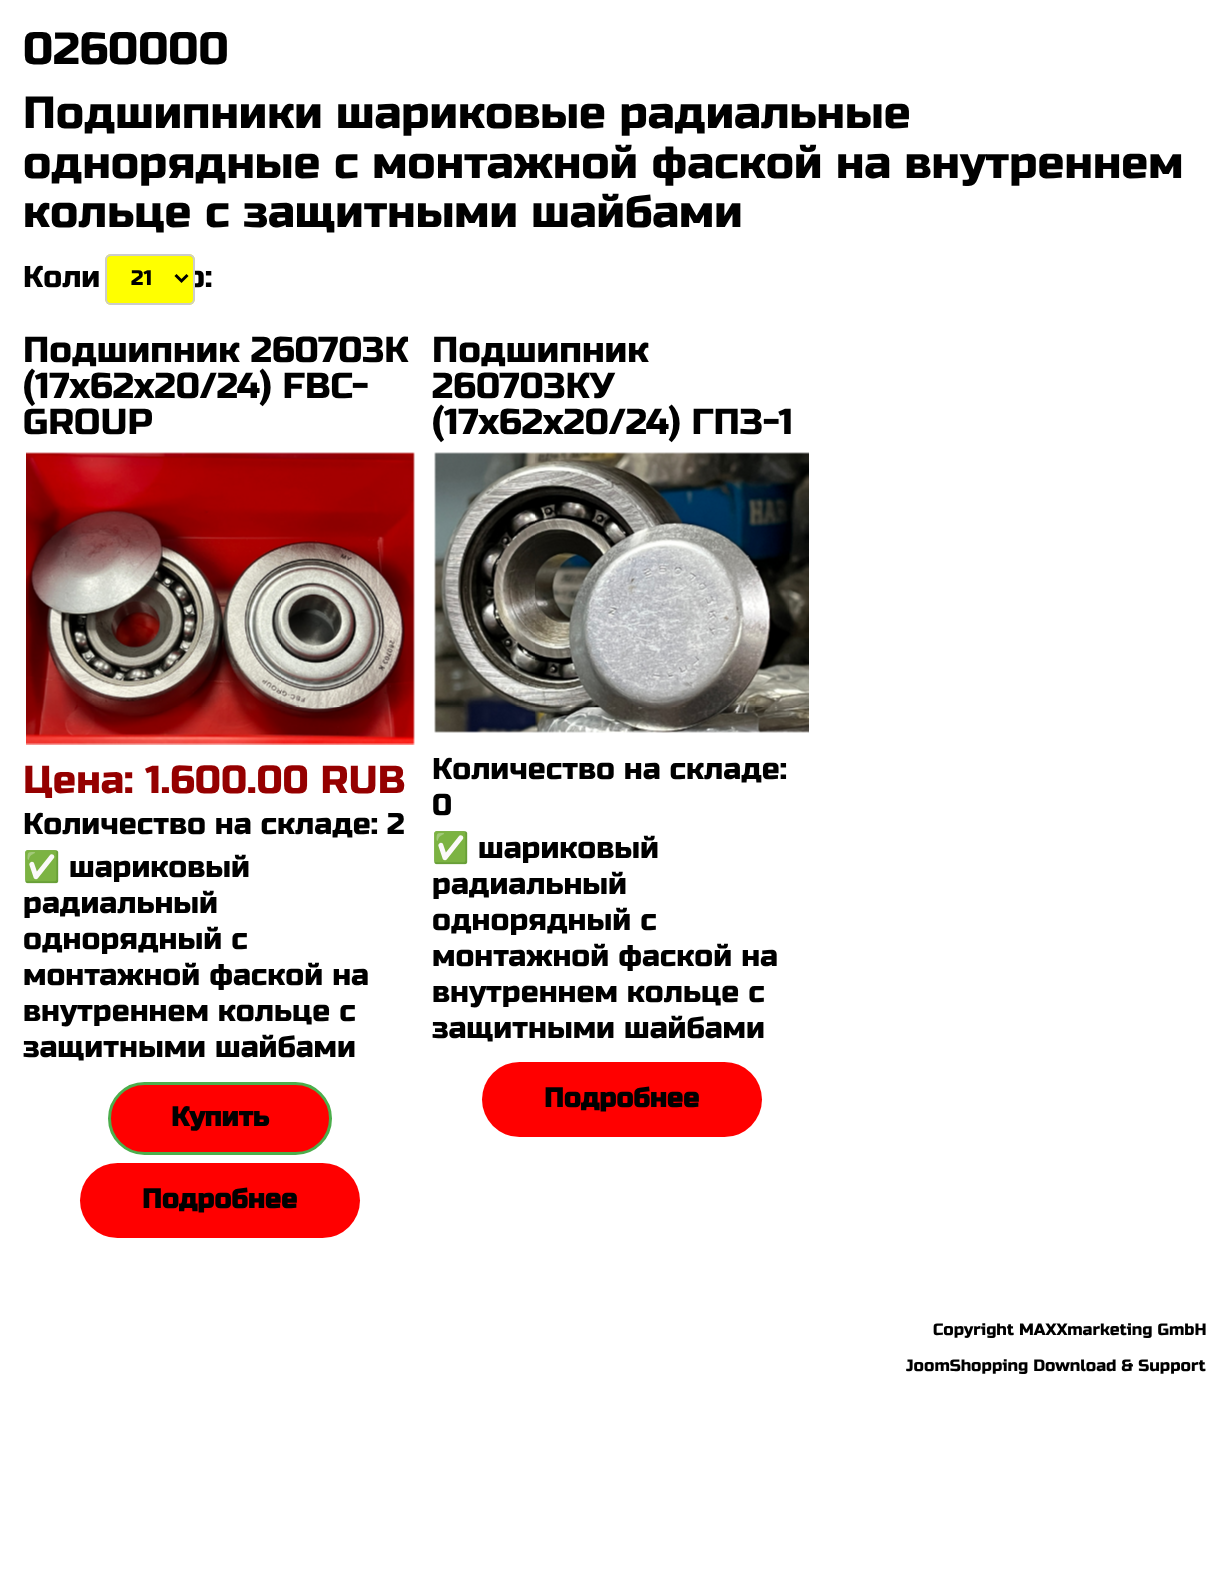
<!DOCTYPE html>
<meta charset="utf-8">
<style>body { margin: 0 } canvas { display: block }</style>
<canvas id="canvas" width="1228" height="1593"></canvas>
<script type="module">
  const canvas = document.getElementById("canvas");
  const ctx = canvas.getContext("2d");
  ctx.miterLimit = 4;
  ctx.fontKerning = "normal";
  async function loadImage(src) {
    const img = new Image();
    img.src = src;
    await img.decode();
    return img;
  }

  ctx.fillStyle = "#ffffff";
  ctx.fillRect(0, 0, 1228, 1593);
  ctx.font = "45px Russo One";
  ctx.fillStyle = "#000000";
  ctx.fillText("0260000", 23, 64);
  ctx.fillText("Подшипники шариковые радиальные", 23, 128);
  ctx.fillText("однорядные с монтажной фаской на внутреннем", 23, 178);
  ctx.fillText("кольце с защитными шайбами", 23, 227);
  ctx.font = "30px Russo One";
  ctx.fillText("Коли", 23, 287);
  ctx.fillText("о:", 186, 287);
  ctx.fillStyle = "#ffff00";
  ctx.beginPath();
  ctx.roundRect(105, 254, 90, 51, 6);
  ctx.fill();
  ctx.fillStyle = "#ecec00";
  ctx.beginPath();
  ctx.moveTo(111, 256);
  ctx.lineTo(189, 256);
  ctx.bezierCurveTo(191, 256, 194, 259, 194, 261);
  ctx.lineTo(194, 260);
  ctx.bezierCurveTo(194, 257, 192, 255, 189, 255);
  ctx.lineTo(112, 255);
  ctx.bezierCurveTo(110, 255, 108, 256, 107, 258);
  ctx.bezierCurveTo(108, 257, 110, 256, 111, 256);
  ctx.closePath();
  ctx.fill();
  ctx.beginPath();
  ctx.roundRect(106, 255, 88, 49, 5);
  ctx.strokeStyle = "#cccccc";
  ctx.lineWidth = 2;
  ctx.stroke();
  ctx.beginPath();
  ctx.moveTo(175.5, 275);
  ctx.lineTo(181.5, 281);
  ctx.lineTo(187.5, 275);
  ctx.strokeStyle = "#000000";
  ctx.lineWidth = 3;
  ctx.stroke();
  ctx.save();
  ctx.beginPath();
  ctx.rect(131, 264, 21, 29);
  ctx.clip();
  ctx.font = "21px Russo One";
  ctx.fillStyle = "#000000";
  ctx.fillText("21", 131, 285);
  ctx.restore();
  ctx.font = "36px Russo One";
  ctx.fillStyle = "#000000";
  ctx.fillText("Подшипник 260703К", 23, 362);
  ctx.fillText("(17х62х20/24) FBC-", 23, 398);
  ctx.fillText("GROUP", 23, 434);
  ctx.drawImage(await loadImage("img1.png"), 26, 452, 389, 293);
  ctx.font = "39px Russo One";
  ctx.fillStyle = "#950000";
  ctx.fillText("Цена: 1.600.00 RUB", 23, 793);
  ctx.font = "30px Russo One";
  ctx.fillStyle = "#000000";
  ctx.fillText("Количество на складе: 2", 23, 834);
  ctx.font = "30px Noto Color Emoji";
  ctx.fillText("✅", 23, 877);
  ctx.font = "30px Russo One";
  ctx.fillText("шариковый", 69, 877);
  ctx.fillText("радиальный", 23, 913);
  ctx.fillText("однорядный с", 23, 949);
  ctx.fillText("монтажной фаской на", 23, 985);
  ctx.fillText("внутреннем кольце с", 23, 1021);
  ctx.fillText("защитными шайбами", 23, 1057);
  ctx.fillStyle = "#ff0000";
  ctx.beginPath();
  ctx.roundRect(109.5, 1083.5, 221, 70, 35);
  ctx.fill();
  ctx.strokeStyle = "#4cae4c";
  ctx.stroke();
  ctx.font = "bold 27px Russo One";
  ctx.fillStyle = "#000000";
  ctx.fillText("Купить", 171, 1126);
  ctx.fillStyle = "#ff0000";
  ctx.beginPath();
  ctx.roundRect(80, 1163, 280, 75, 37.5);
  ctx.fill();
  ctx.fillStyle = "#000000";
  ctx.fillText("Подробнее", 142, 1208);
  ctx.font = "36px Russo One";
  ctx.fillText("Подшипник", 432, 362);
  ctx.fillText("260703КУ", 432, 398);
  ctx.fillText("(17х62х20/24) ГПЗ-1", 432, 434);
  ctx.drawImage(await loadImage("img2.png"), 434, 452, 375, 281);
  ctx.font = "30px Russo One";
  ctx.fillText("Количество на складе:", 432, 779);
  ctx.fillText("0", 432, 815);
  ctx.font = "30px Noto Color Emoji";
  ctx.fillText("✅", 432, 858);
  ctx.font = "30px Russo One";
  ctx.fillText("шариковый", 478, 858);
  ctx.fillText("радиальный", 432, 894);
  ctx.fillText("однорядный с", 432, 930);
  ctx.fillText("монтажной фаской на", 432, 966);
  ctx.fillText("внутреннем кольце с", 432, 1002);
  ctx.fillText("защитными шайбами", 432, 1038);
  ctx.fillStyle = "#ff0000";
  ctx.beginPath();
  ctx.roundRect(482, 1062, 280, 75, 37.5);
  ctx.fill();
  ctx.font = "bold 27px Russo One";
  ctx.fillStyle = "#000000";
  ctx.fillText("Подробнее", 544, 1107);
  ctx.font = "16.5px Russo One";
  ctx.fillText("Copyright MAXXmarketing GmbH", 933, 1335);
  ctx.fillText("JoomShopping Download & Support", 906, 1371);
</script>
